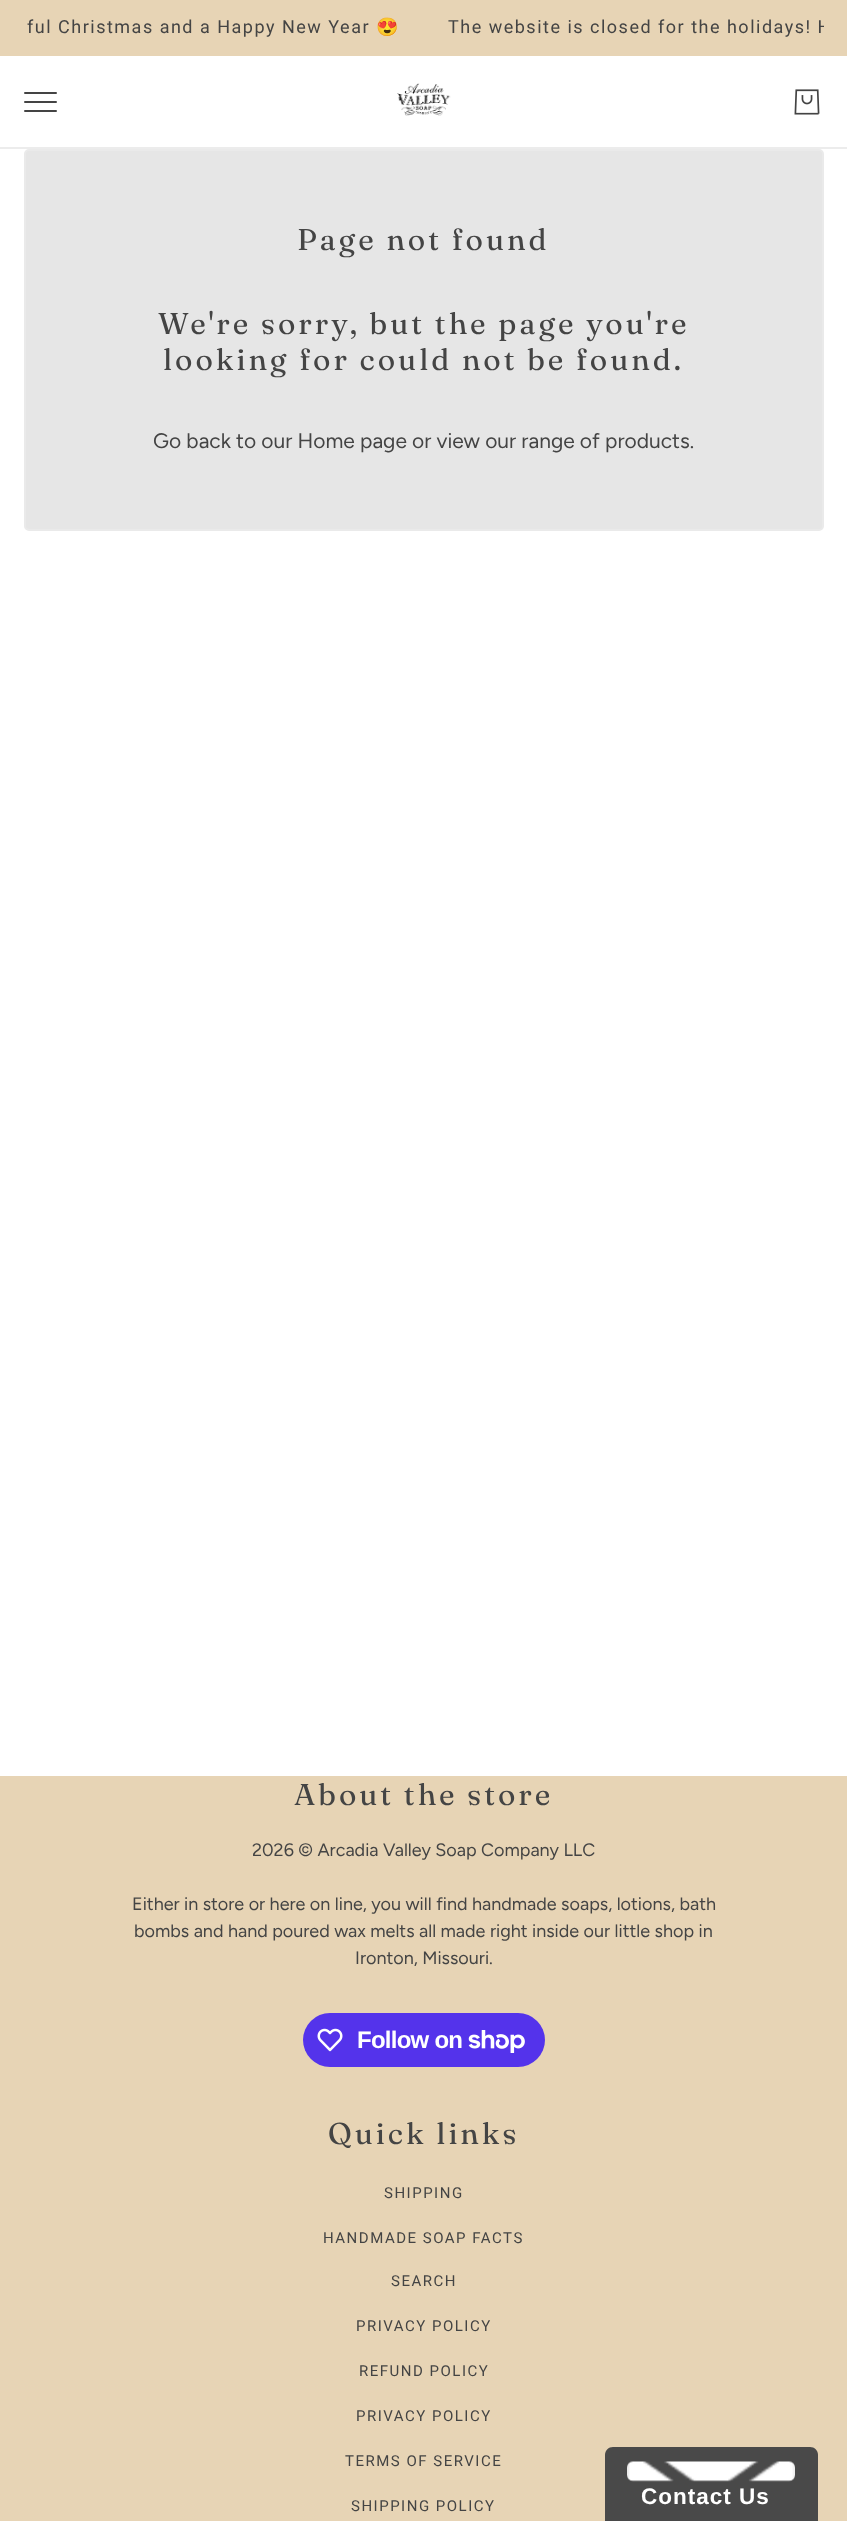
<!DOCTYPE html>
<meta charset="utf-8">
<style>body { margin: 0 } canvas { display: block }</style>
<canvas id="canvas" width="847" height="2521"></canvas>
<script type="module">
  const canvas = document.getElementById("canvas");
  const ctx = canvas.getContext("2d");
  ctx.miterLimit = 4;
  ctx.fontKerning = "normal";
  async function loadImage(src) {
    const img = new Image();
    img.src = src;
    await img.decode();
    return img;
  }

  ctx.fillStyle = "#ffffff";
  ctx.fillRect(0, 0, 847, 2521);
  ctx.fillStyle = "#e7d4b5";
  ctx.fillRect(0, 0, 847, 56);
  ctx.letterSpacing = "1.5px";
  ctx.font = "18px Roboto";
  ctx.fillStyle = "#444444";
  ctx.fillText("ful Christmas and a Happy New Year", 27, 33);
  ctx.font = "18px Noto Color Emoji";
  ctx.fillText("😍", 376, 33);
  ctx.save();
  ctx.beginPath();
  ctx.rect(24, 12, 800, 32);
  ctx.clip();
  ctx.font = "18px Roboto";
  ctx.fillText("The website is closed for the holidays! H", 448, 33);
  ctx.restore();
  ctx.beginPath();
  ctx.roundRect(24, 92, 33, 2, 1);
  ctx.fill();
  ctx.beginPath();
  ctx.roundRect(24, 101, 33, 2, 1);
  ctx.fill();
  ctx.beginPath();
  ctx.roundRect(24, 110, 33, 2, 1);
  ctx.fill();
  ctx.drawImage(await loadImage("img1.png"), 397, 83, 54, 33);
  ctx.drawImage(await loadImage("img2.png"), 794, 89, 26, 26);
  ctx.fillStyle = "#ececec";
  ctx.fillRect(0, 147, 847, 2);
  ctx.fillStyle = "#e6e6e6";
  ctx.beginPath();
  ctx.roundRect(25, 150, 798, 380, 4);
  ctx.fill();
  ctx.strokeStyle = "#eaeaea";
  ctx.lineWidth = 2;
  ctx.stroke();
  ctx.letterSpacing = "3px";
  ctx.font = "30px Fraunces";
  ctx.fillStyle = "#444444";
  ctx.fillText("Page not found", 297, 250);
  ctx.fillText("We're sorry, but the page you're", 158, 334);
  ctx.fillText("looking for could not be found.", 163, 370);
  ctx.letterSpacing = "0px";
  ctx.font = "21px Figtree";
  ctx.fillText("Go back to our Home page or view our range of products.", 153, 448);
  ctx.fillStyle = "#e7d4b5";
  ctx.fillRect(0, 1776, 847, 745);
  ctx.letterSpacing = "3px";
  ctx.font = "30px Fraunces";
  ctx.fillStyle = "#444444";
  ctx.fillText("About the store", 294, 1805);
  ctx.letterSpacing = "0px";
  ctx.font = "18px Figtree";
  ctx.fillText("2026 © Arcadia Valley Soap Company LLC", 252, 1856);
  ctx.fillText("Either in store or here on line, you will find handmade soaps, lotions, bath", 132, 1910);
  ctx.fillText("bombs and hand poured wax melts all made right inside our little shop in", 134, 1937);
  ctx.fillText("Ironton, Missouri.", 355, 1964);
  ctx.fillStyle = "#5433eb";
  ctx.beginPath();
  ctx.roundRect(303, 2013, 242, 54, 27);
  ctx.fill();
  ctx.drawImage(await loadImage("img3.png"), 317, 2028, 26, 24);
  ctx.letterSpacing = "-0.75px";
  ctx.font = "bold 24px Liberation Sans";
  ctx.fillStyle = "#ffffff";
  ctx.fillText("Follow on", 357, 2048);
  ctx.drawImage(await loadImage("img4.png"), 468, 2030, 57, 23);
  ctx.letterSpacing = "3px";
  ctx.font = "30px Fraunces";
  ctx.fillStyle = "#444444";
  ctx.fillText("Quick links", 328, 2144);
  ctx.letterSpacing = "1.5px";
  ctx.font = "15px Roboto";
  ctx.fillText("SHIPPING", 384, 2198);
  ctx.fillText("HANDMADE SOAP FACTS", 323, 2243);
  ctx.fillText("SEARCH", 391, 2286);
  ctx.fillText("PRIVACY POLICY", 356, 2331);
  ctx.fillText("REFUND POLICY", 359, 2376);
  ctx.fillText("PRIVACY POLICY", 356, 2421);
  ctx.fillText("TERMS OF SERVICE", 345, 2466);
  ctx.fillText("SHIPPING POLICY", 351, 2511);
  ctx.fillStyle = "#494949";
  ctx.beginPath();
  ctx.moveTo(613, 2447);
  ctx.lineTo(810, 2447);
  ctx.bezierCurveTo(814.5, 2447, 818, 2450.5, 818, 2455);
  ctx.lineTo(818, 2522);
  ctx.lineTo(605, 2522);
  ctx.lineTo(605, 2455);
  ctx.bezierCurveTo(605, 2450.5, 608.5, 2447, 613, 2447);
  ctx.closePath();
  ctx.fill();
  ctx.drawImage(await loadImage("img5.png"), 627, 2461, 168, 21);
  ctx.letterSpacing = "1px";
  ctx.font = "bold 22.5px Liberation Sans";
  ctx.fillStyle = "#ffffff";
  ctx.fillText("Contact Us", 641, 2504);
</script>
